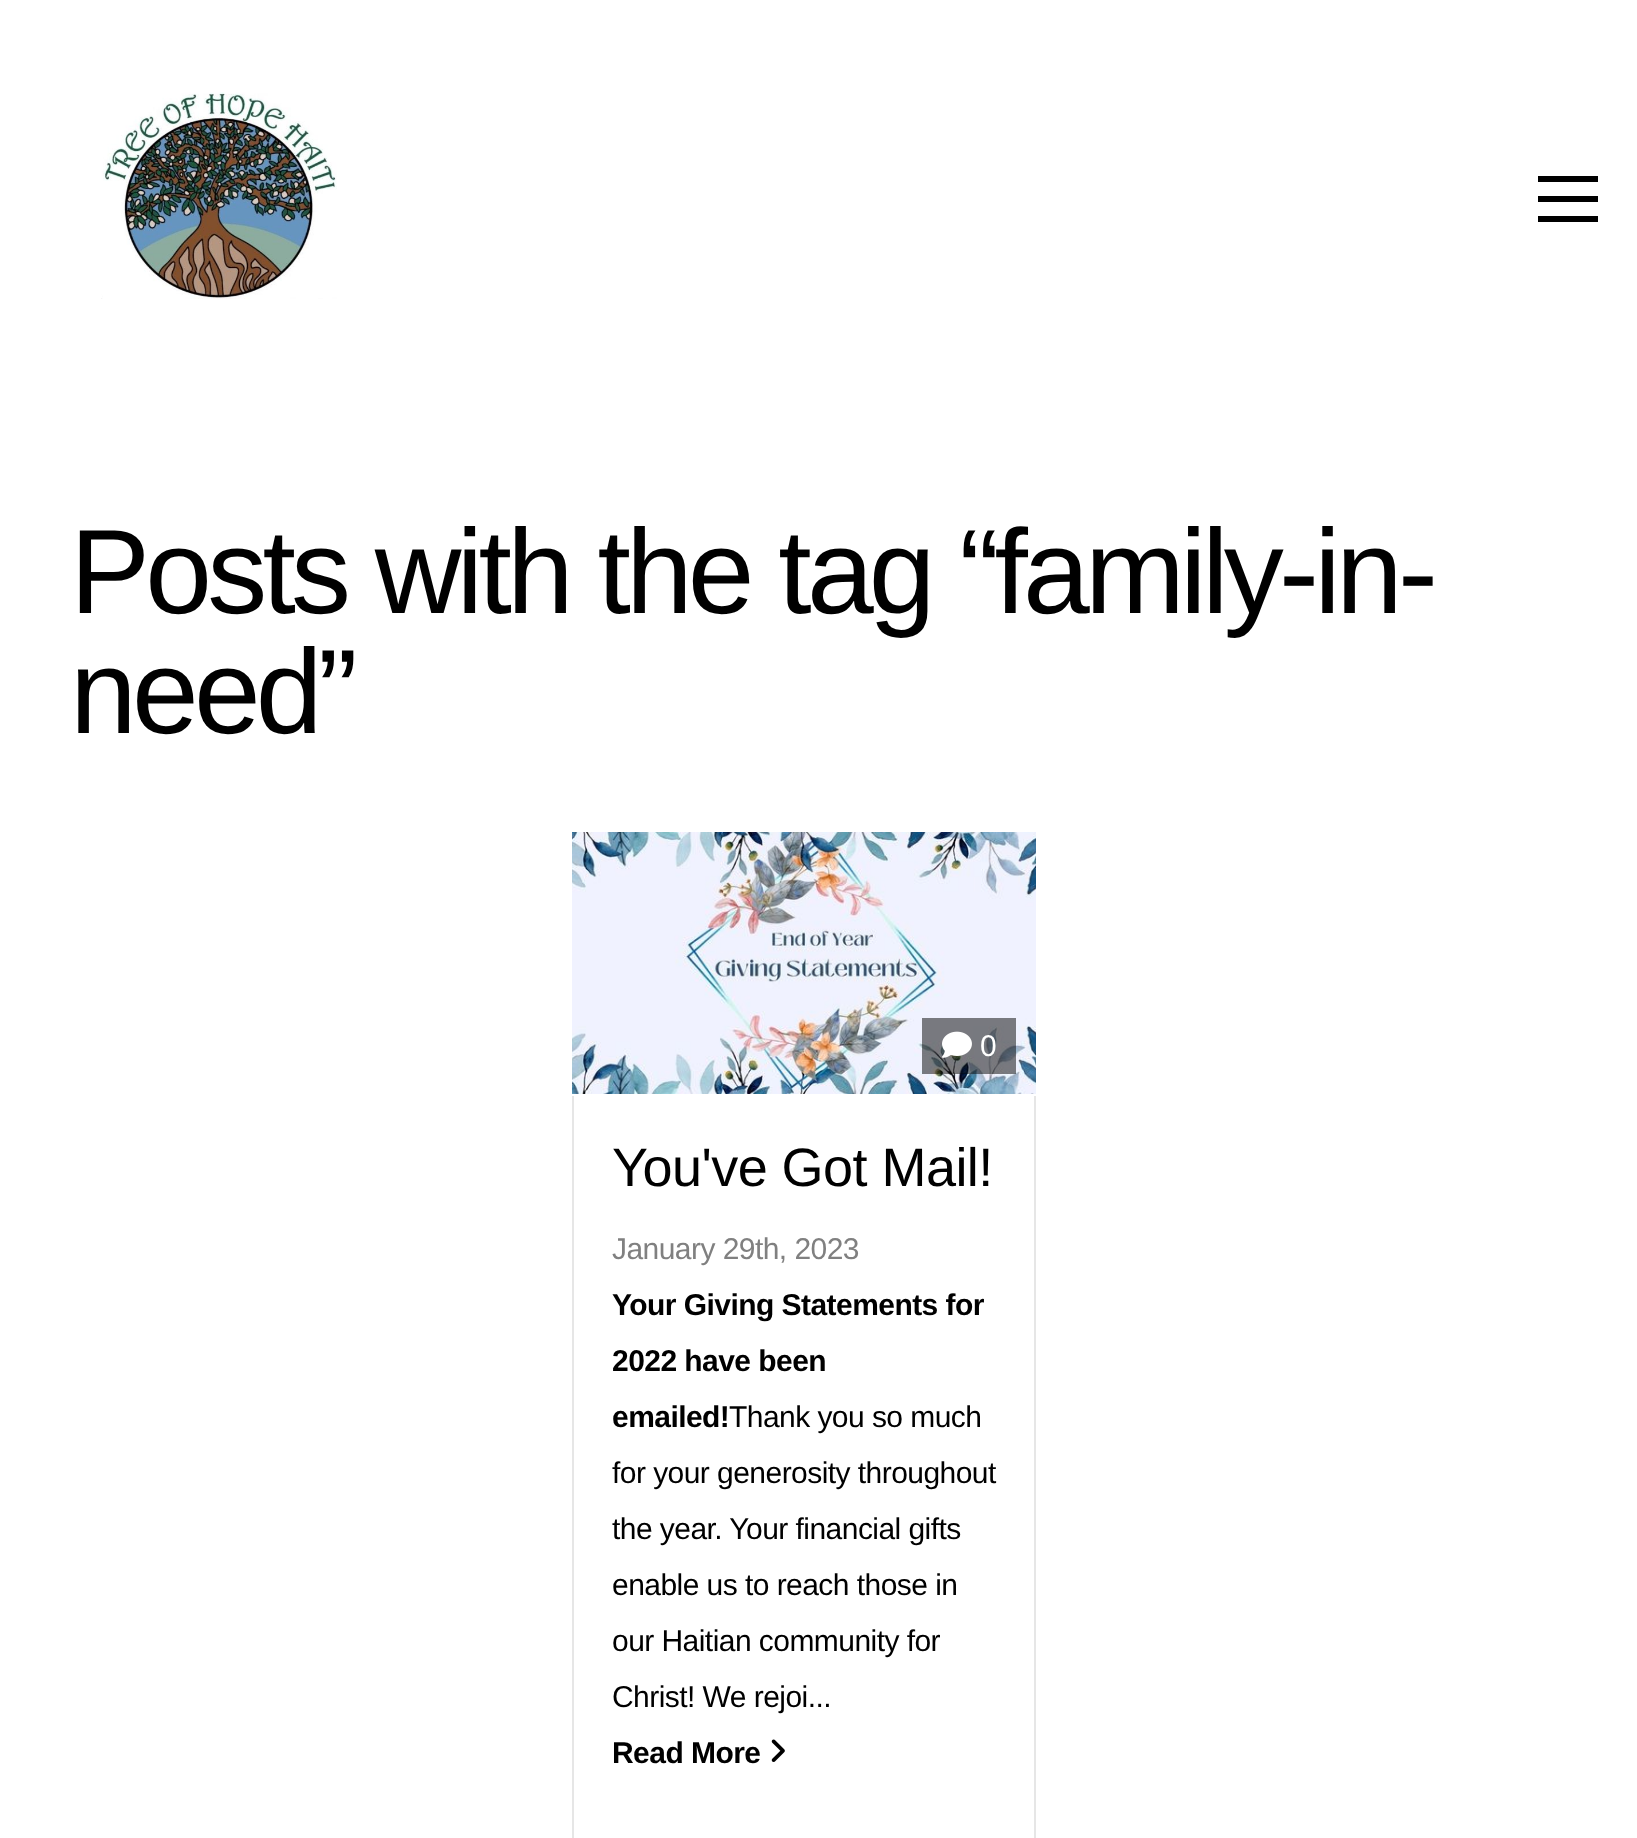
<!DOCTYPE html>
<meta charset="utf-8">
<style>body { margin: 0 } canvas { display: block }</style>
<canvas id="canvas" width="1637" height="1838"></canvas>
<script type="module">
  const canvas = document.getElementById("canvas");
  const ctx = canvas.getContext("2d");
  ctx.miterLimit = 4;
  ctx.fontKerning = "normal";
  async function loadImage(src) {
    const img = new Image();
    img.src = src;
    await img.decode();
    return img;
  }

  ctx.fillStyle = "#ffffff";
  ctx.fillRect(0, 0, 1637, 1838);
  ctx.drawImage(await loadImage("img1.png"), 101, 92, 236, 207);
  ctx.fillStyle = "#000000";
  ctx.fillRect(1538, 176, 60, 6);
  ctx.fillRect(1538, 196, 60, 6);
  ctx.fillRect(1538, 216, 60, 6);
  ctx.letterSpacing = "-4.8px";
  ctx.font = "120px Liberation Sans";
  ctx.fillText("Posts with the tag “family-in-", 70, 613);
  ctx.fillText("need”", 70, 733);
  ctx.drawImage(await loadImage("img2.png"), 572, 832, 464, 262);
  ctx.fillStyle = "rgba(0, 0, 0, 0.5)";
  ctx.fillRect(922, 1018, 94, 56);
  ctx.drawImage(await loadImage("img3.png"), 942, 1031, 30, 27);
  ctx.letterSpacing = "-0.55px";
  ctx.font = "30px Liberation Sans";
  ctx.fillStyle = "#ffffff";
  ctx.fillText("0", 980, 1056);
  ctx.fillStyle = "#e6e6e6";
  ctx.fillRect(1034, 1096, 2, 742);
  ctx.fillRect(572, 1096, 2, 742);
  ctx.font = "54px Liberation Sans";
  ctx.fillStyle = "#000000";
  ctx.fillText("You've Got Mail!", 612, 1186);
  ctx.font = "30px Liberation Sans";
  ctx.fillStyle = "#808080";
  ctx.fillText("January 29th, 2023", 612, 1259);
  ctx.font = "bold 30px Liberation Sans";
  ctx.fillStyle = "#000000";
  ctx.fillText("Your Giving Statements for", 612, 1315);
  ctx.fillText("2022 have been", 612, 1371);
  ctx.fillText("emailed!", 612, 1427);
  ctx.font = "30px Liberation Sans";
  ctx.fillText("Thank you so much", 729, 1427);
  ctx.fillText("for your generosity throughout", 612, 1483);
  ctx.fillText("the year. Your financial gifts", 612, 1539);
  ctx.fillText("enable us to reach those in", 612, 1595);
  ctx.fillText("our Haitian community for", 612, 1651);
  ctx.fillText("Christ! We rejoi...", 612, 1707);
  ctx.font = "bold 30px Liberation Sans";
  ctx.fillText("Read More", 612, 1763);
  ctx.drawImage(await loadImage("img4.png"), 771, 1739, 14, 23);
</script>
